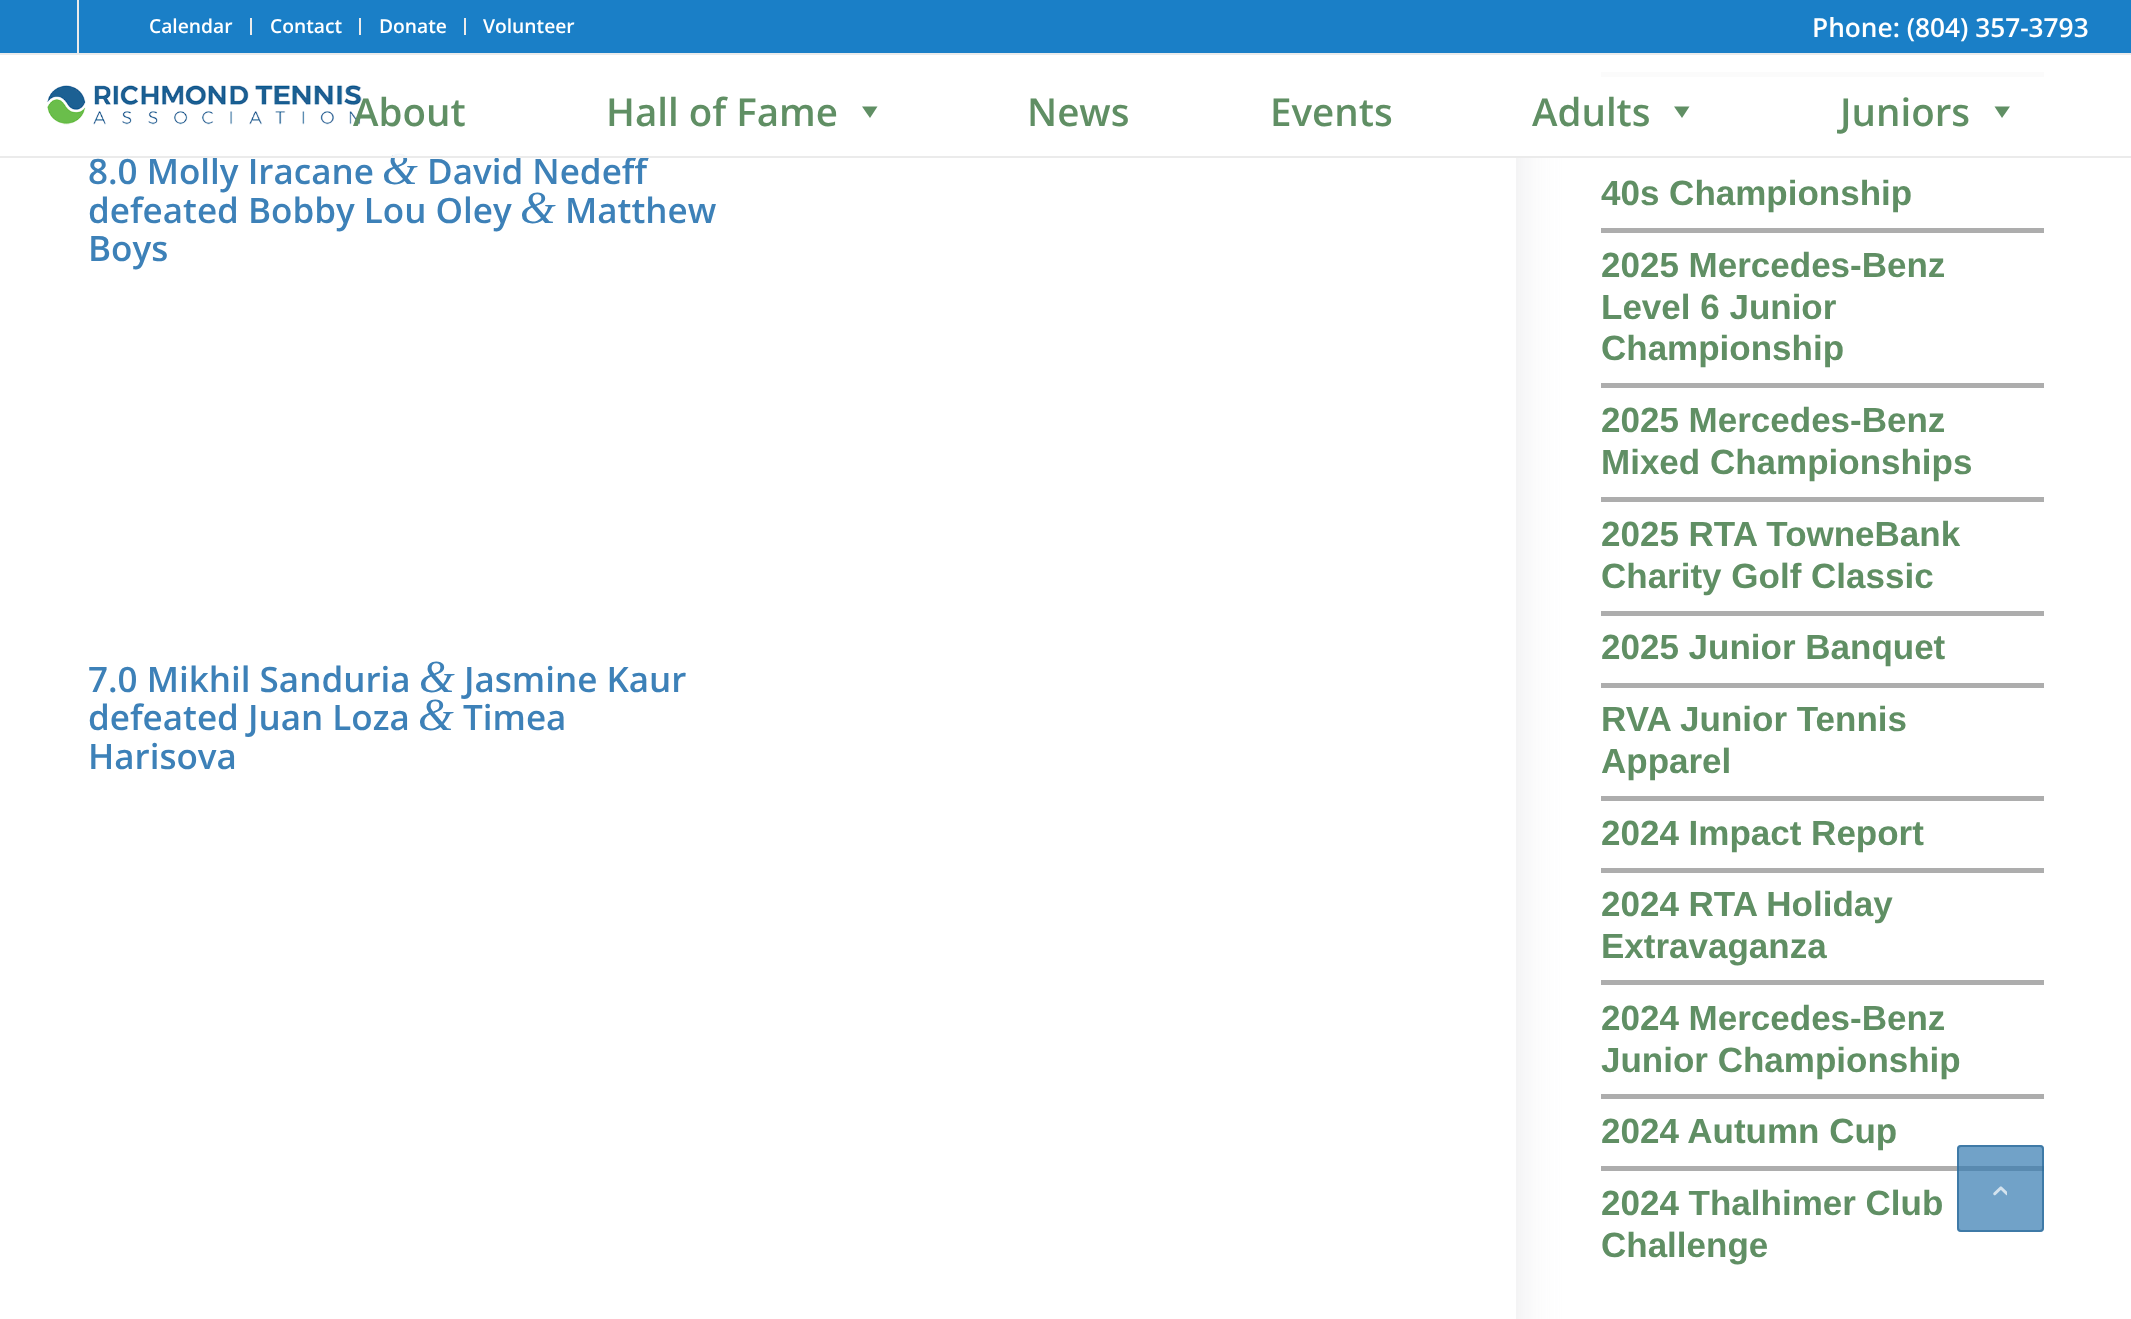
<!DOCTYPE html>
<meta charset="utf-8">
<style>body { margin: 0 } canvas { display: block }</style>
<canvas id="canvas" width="2131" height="1319"></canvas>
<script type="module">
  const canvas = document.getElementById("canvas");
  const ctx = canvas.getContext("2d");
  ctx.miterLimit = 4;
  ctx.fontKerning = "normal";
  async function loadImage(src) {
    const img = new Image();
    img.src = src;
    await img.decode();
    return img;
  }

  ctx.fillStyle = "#ffffff";
  ctx.fillRect(0, 0, 2131, 1319);
  ctx.save();
  ctx.beginPath();
  ctx.moveTo(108, 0);
  ctx.lineTo(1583, 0);
  ctx.lineTo(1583, 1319);
  ctx.lineTo(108, 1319);
  ctx.closePath();
  ctx.moveTo(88, -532);
  ctx.lineTo(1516, -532);
  ctx.lineTo(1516, 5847);
  ctx.lineTo(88, 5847);
  ctx.closePath();
  ctx.clip("evenodd");
  ctx.fillStyle = "#e9e9eb";
  ctx.filter = "blur(22px)";
  ctx.beginPath();
  ctx.rect(175, -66, 1341, 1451);
  ctx.fill();
  ctx.filter = "none";
  ctx.restore();
  ctx.fillStyle = "#1a7fc7";
  ctx.fillRect(0, 0, 2131, 53);
  ctx.fillStyle = "#ebebeb";
  ctx.fillRect(0, 53, 2131, 2);
  ctx.fillRect(77, 0, 2, 53);
  ctx.fillRect(250, 18, 2, 17);
  ctx.font = "600 19.25px Open Sans";
  ctx.fillStyle = "#ffffff";
  ctx.fillText("Calendar", 149, 33);
  ctx.fillStyle = "#ebebeb";
  ctx.fillRect(359, 18, 2, 17);
  ctx.fillStyle = "#ffffff";
  ctx.fillText("Contact", 270, 33);
  ctx.fillStyle = "#ebebeb";
  ctx.fillRect(464, 18, 2, 17);
  ctx.fillStyle = "#ffffff";
  ctx.fillText("Donate", 379, 33);
  ctx.fillText("Volunteer", 483, 33);
  ctx.font = "600 26.25px Open Sans";
  ctx.fillText("Phone: (804) 357-3793", 1812, 37);
  ctx.font = "italic 46px Liberation Serif";
  ctx.fillStyle = "#3d81b8";
  ctx.fillText("&", 382, 184);
  ctx.fillStyle = "#adadad";
  ctx.fillRect(1601, 72, 443, 5);
  ctx.fillStyle = "rgba(255, 255, 255, 0.95)";
  ctx.fillRect(393, 55, 1651, 101);
  ctx.font = "600 35px Open Sans";
  ctx.fillStyle = "#3d81b8";
  ctx.fillText("8.0 Molly Iracane", 88, 184);
  ctx.fillText("David Nedeff", 427, 184);
  ctx.fillStyle = "#ebebeb";
  ctx.fillRect(0, 156, 2131, 2);
  ctx.drawImage(await loadImage("img1.png"), 46, 84, 316, 41);
  ctx.font = "600 38.5px Open Sans";
  ctx.fillStyle = "#608f64";
  ctx.fillText("About", 353, 126);
  ctx.fillText("Hall of Fame", 606, 126);
  ctx.beginPath();
  ctx.moveTo(877.5, 106.5);
  ctx.lineTo(870, 118);
  ctx.lineTo(862, 106.5);
  ctx.closePath();
  ctx.fill();
  ctx.fillText("News", 1027, 126);
  ctx.fillText("Events", 1270, 126);
  ctx.fillText("Adults", 1532, 126);
  ctx.beginPath();
  ctx.moveTo(1689.5, 106.5);
  ctx.lineTo(1682, 118);
  ctx.lineTo(1674, 106.5);
  ctx.closePath();
  ctx.fill();
  ctx.fillText("Juniors", 1840, 126);
  ctx.beginPath();
  ctx.moveTo(2010, 106.5);
  ctx.lineTo(2002, 118);
  ctx.lineTo(1994.5, 106.5);
  ctx.closePath();
  ctx.fill();
  ctx.font = "600 35px Open Sans";
  ctx.fillStyle = "#3d81b8";
  ctx.fillText("defeated Bobby Lou Oley", 88, 223);
  ctx.font = "italic 46px Liberation Serif";
  ctx.fillText("&", 520, 223);
  ctx.font = "600 35px Open Sans";
  ctx.fillText("Matthew", 565, 223);
  ctx.fillText("Boys", 88, 261);
  ctx.fillText("7.0 Mikhil Sanduria", 88, 692);
  ctx.font = "italic 46px Liberation Serif";
  ctx.fillText("&", 419, 692);
  ctx.font = "600 35px Open Sans";
  ctx.fillText("Jasmine Kaur", 464, 692);
  ctx.fillText("defeated Juan Loza", 88, 730);
  ctx.font = "italic 46px Liberation Serif";
  ctx.fillText("&", 418, 730);
  ctx.font = "600 35px Open Sans";
  ctx.fillText("Timea", 463, 730);
  ctx.fillText("Harisova", 88, 769);
  ctx.font = "bold 35px Liberation Sans";
  ctx.fillStyle = "#608f64";
  ctx.fillText("40s Championship", 1601, 205);
  ctx.fillStyle = "#adadad";
  ctx.fillRect(1601, 228, 443, 5);
  ctx.fillStyle = "#608f64";
  ctx.fillText("2025 Mercedes-Benz", 1601, 277);
  ctx.fillText("Level 6 Junior", 1601, 319);
  ctx.fillText("Championship", 1601, 360);
  ctx.fillStyle = "#adadad";
  ctx.fillRect(1601, 383, 443, 5);
  ctx.fillStyle = "#608f64";
  ctx.fillText("2025 Mercedes-Benz", 1601, 432);
  ctx.fillText("Mixed Championships", 1601, 474);
  ctx.fillStyle = "#adadad";
  ctx.fillRect(1601, 497, 443, 5);
  ctx.fillStyle = "#608f64";
  ctx.fillText("2025 RTA TowneBank", 1601, 546);
  ctx.fillText("Charity Golf Classic", 1601, 588);
  ctx.fillStyle = "#adadad";
  ctx.fillRect(1601, 611, 443, 5);
  ctx.fillStyle = "#608f64";
  ctx.fillText("2025 Junior Banquet", 1601, 659);
  ctx.fillStyle = "#adadad";
  ctx.fillRect(1601, 683, 443, 5);
  ctx.fillStyle = "#608f64";
  ctx.fillText("RVA Junior Tennis", 1601, 731);
  ctx.fillText("Apparel", 1601, 773);
  ctx.fillStyle = "#adadad";
  ctx.fillRect(1601, 796, 443, 5);
  ctx.fillStyle = "#608f64";
  ctx.fillText("2024 Impact Report", 1601, 845);
  ctx.fillStyle = "#adadad";
  ctx.fillRect(1601, 868, 443, 5);
  ctx.fillStyle = "#608f64";
  ctx.fillText("2024 RTA Holiday", 1601, 916);
  ctx.fillText("Extravaganza", 1601, 958);
  ctx.fillStyle = "#adadad";
  ctx.fillRect(1601, 980, 443, 5);
  ctx.fillStyle = "#608f64";
  ctx.fillText("2024 Mercedes-Benz", 1601, 1030);
  ctx.fillText("Junior Championship", 1601, 1072);
  ctx.fillStyle = "#adadad";
  ctx.fillRect(1601, 1094, 443, 5);
  ctx.fillStyle = "#608f64";
  ctx.fillText("2024 Autumn Cup", 1601, 1143);
  ctx.fillStyle = "#adadad";
  ctx.fillRect(1601, 1166, 443, 5);
  ctx.fillStyle = "#608f64";
  ctx.fillText("2024 Thalhimer Club", 1601, 1215);
  ctx.fillText("Challenge", 1601, 1257);
  ctx.fillStyle = "rgba(52, 122, 176, 0.7)";
  ctx.beginPath();
  ctx.roundRect(1957, 1145, 87, 87, 4);
  ctx.fill();
  ctx.beginPath();
  ctx.roundRect(1958, 1146, 85, 85, 3);
  ctx.strokeStyle = "rgba(43, 105, 153, 0.7)";
  ctx.lineWidth = 2;
  ctx.stroke();
  ctx.drawImage(await loadImage("img2.png"), 1993, 1186, 14, 10);
</script>
